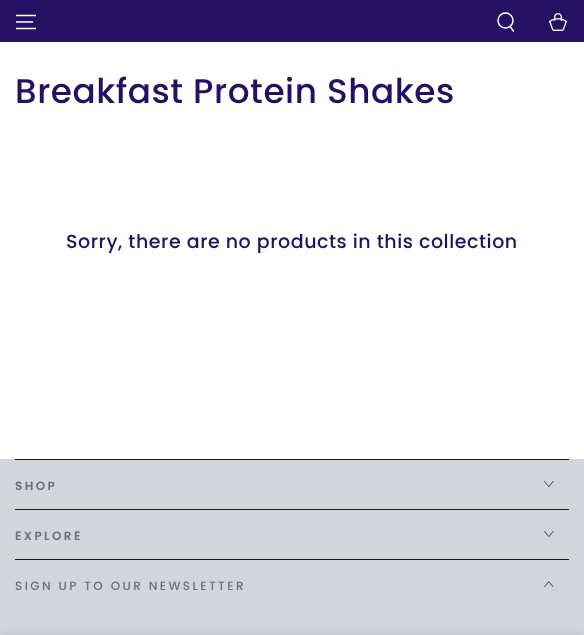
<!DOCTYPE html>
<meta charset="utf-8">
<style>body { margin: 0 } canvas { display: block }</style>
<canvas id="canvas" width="584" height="635"></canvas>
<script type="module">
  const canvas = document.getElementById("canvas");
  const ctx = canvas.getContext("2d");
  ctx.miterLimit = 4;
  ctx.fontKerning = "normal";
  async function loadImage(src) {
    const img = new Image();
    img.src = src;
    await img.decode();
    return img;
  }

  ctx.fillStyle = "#ffffff";
  ctx.fillRect(0, 0, 584, 635);
  ctx.fillStyle = "#251163";
  ctx.fillRect(0, 0, 584, 42);
  ctx.beginPath();
  ctx.moveTo(16, 28.5);
  ctx.lineTo(36, 28.5);
  ctx.moveTo(16, 22);
  ctx.lineTo(33, 22);
  ctx.moveTo(16, 15.5);
  ctx.lineTo(36, 15.5);
  ctx.strokeStyle = "#ffffff";
  ctx.lineWidth = 1.4;
  ctx.stroke();
  ctx.beginPath();
  ctx.arc(505.5, 20.5, 7.5, 0, Math.PI * 2);
  ctx.lineWidth = 1.5;
  ctx.stroke();
  ctx.beginPath();
  ctx.moveTo(510, 26.5);
  ctx.lineTo(513.5, 31);
  ctx.lineCap = "round";
  ctx.stroke();
  ctx.drawImage(await loadImage("img1.png"), 548, 13, 19, 18);
  ctx.letterSpacing = "0.55px";
  ctx.font = "500 34.25px Poppins";
  ctx.fillText("Breakfast Protein Shakes", 15, 103);
  ctx.font = "500 19px Poppins";
  ctx.fillText("Sorry, there are no products in this collection", 66, 248);
  ctx.fillStyle = "#d2d5d9";
  ctx.fillRect(0, 459, 584, 176);
  ctx.fillStyle = "#1a1b18";
  ctx.fillRect(15, 459, 554, 1);
  ctx.fillRect(15, 509, 554, 1);
  ctx.letterSpacing = "2.4px";
  ctx.font = "600 12px Poppins";
  ctx.fillStyle = "#6b7177";
  ctx.fillText("SHOP", 15, 490);
  ctx.drawImage(await loadImage("img2.png"), 544, 481, 10, 6);
  ctx.fillStyle = "#1a1b18";
  ctx.fillRect(15, 559, 554, 1);
  ctx.fillStyle = "#6b7177";
  ctx.fillText("EXPLORE", 15, 540);
  ctx.drawImage(await loadImage("img2.png"), 544, 531, 10, 6);
  ctx.font = "500 12px Poppins";
  ctx.fillText("SIGN UP TO OUR NEWSLETTER", 15, 590);
  ctx.drawImage(await loadImage("img3.png"), 544, 581, 10, 6);
  ctx.fillStyle = "rgba(37, 17, 99, 0.15)";
  ctx.filter = "blur(4px)";
  ctx.beginPath();
  ctx.rect(0, 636, 584, 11);
  ctx.fill();
  ctx.filter = "none";
</script>
